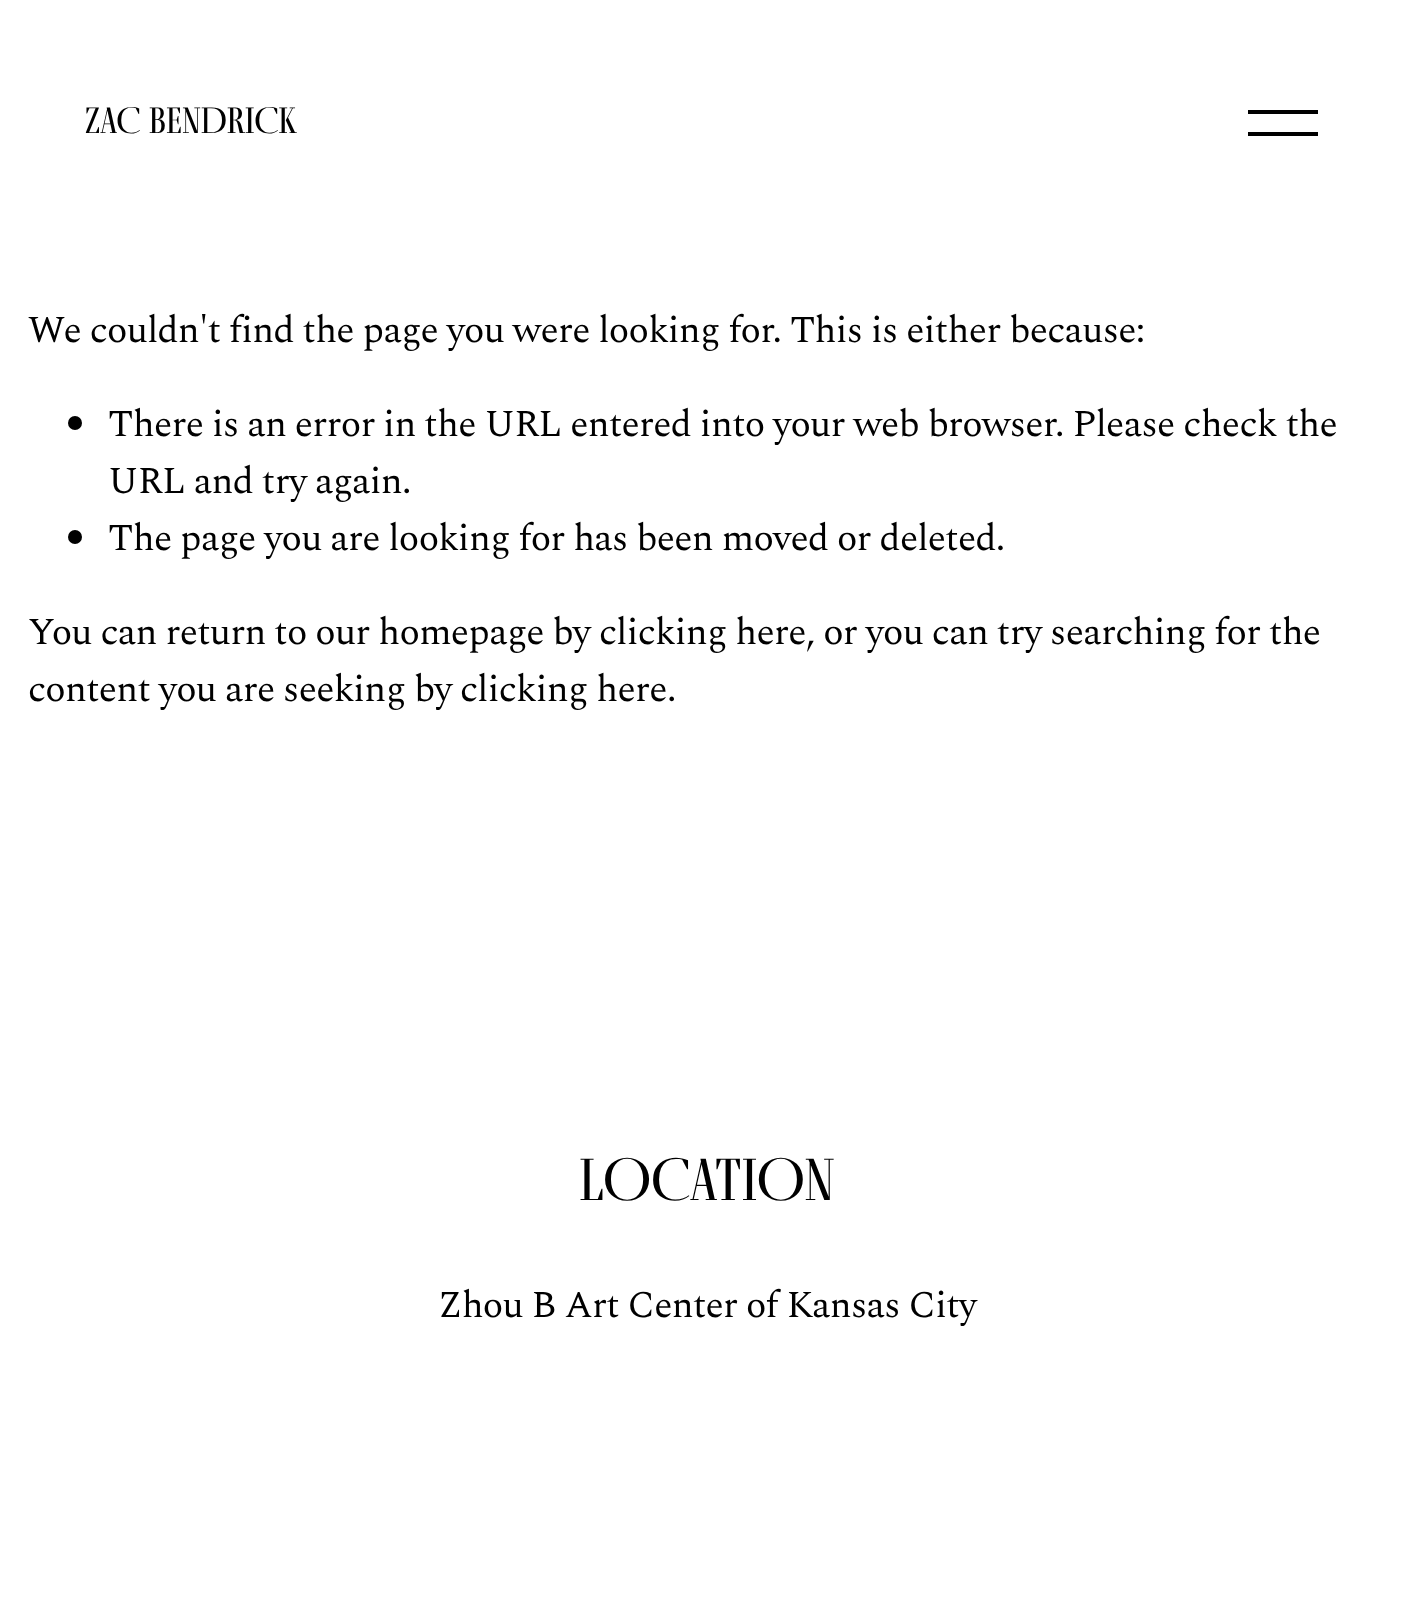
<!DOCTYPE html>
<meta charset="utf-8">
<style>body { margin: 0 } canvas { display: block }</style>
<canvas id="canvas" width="1413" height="1606"></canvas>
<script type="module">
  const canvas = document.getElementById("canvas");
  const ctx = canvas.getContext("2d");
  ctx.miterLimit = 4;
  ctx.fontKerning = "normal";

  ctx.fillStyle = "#ffffff";
  ctx.fillRect(0, 0, 1413, 1606);
  ctx.font = "37.75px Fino";
  ctx.fillStyle = "#000000";
  ctx.fillText("ZAC BENDRICK", 85, 133);
  ctx.fillRect(1248, 110, 70, 4);
  ctx.fillRect(1248, 132, 70, 4);
  ctx.letterSpacing = "-0.75px";
  ctx.font = "37.75px Spectral";
  ctx.fillText("We couldn't find the page you were looking for. This is either because:", 28, 342);
  ctx.beginPath();
  ctx.arc(75, 423, 7, 0, Math.PI * 2);
  ctx.fill();
  ctx.fillText("There is an error in the URL entered into your web browser. Please check the", 108, 436);
  ctx.fillText("URL and try again.", 108, 493);
  ctx.beginPath();
  ctx.arc(75, 537, 7, 0, Math.PI * 2);
  ctx.fill();
  ctx.fillText("The page you are looking for has been moved or deleted.", 108, 550);
  ctx.fillText("You can return to our homepage by", 28, 644);
  ctx.fillText("clicking here, or you can try searching for the", 599, 644);
  ctx.fillText("content you are seeking by", 28, 701);
  ctx.fillText("clicking here", 460, 701);
  ctx.fillText(".", 667, 701);
  ctx.letterSpacing = "0px";
  ctx.font = "61px Fino";
  ctx.fillText("LOCATION", 579, 1200);
  ctx.letterSpacing = "-0.75px";
  ctx.font = "37.75px Spectral";
  ctx.fillText("Zhou B Art Center of Kansas City", 438, 1317);
</script>
